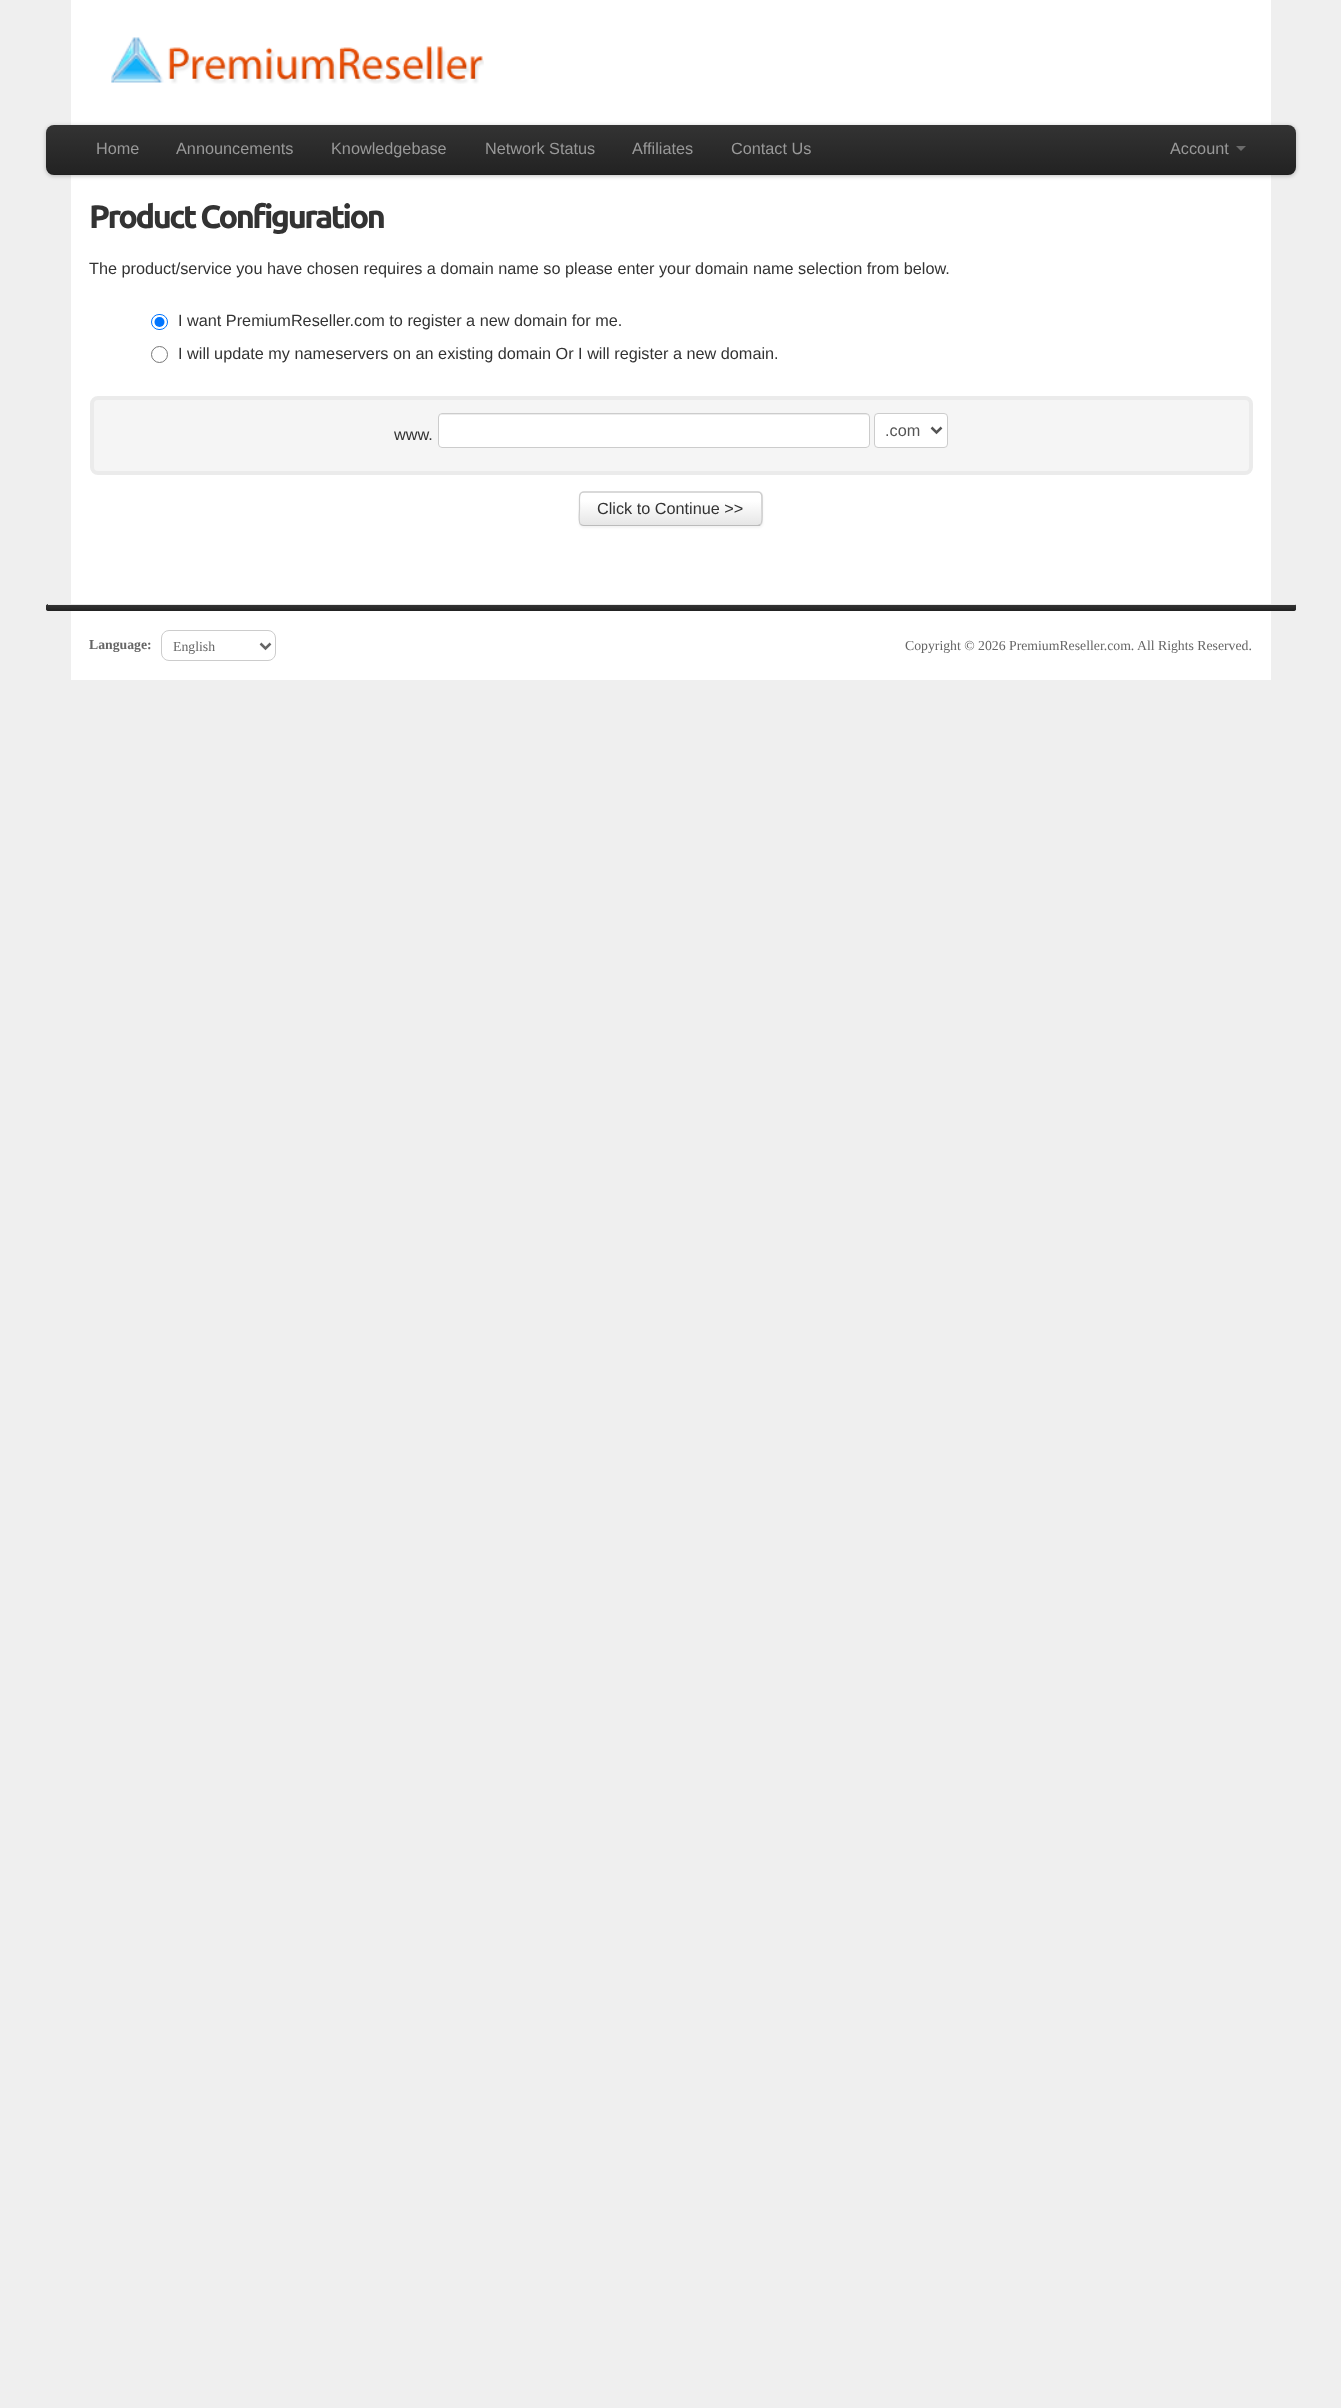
<!DOCTYPE html>
<meta charset="utf-8">
<style>body { margin: 0 } canvas { display: block }</style>
<canvas id="canvas" width="1341" height="2408"></canvas>
<script type="module">
  const canvas = document.getElementById("canvas");
  const ctx = canvas.getContext("2d");
  ctx.miterLimit = 4;
  ctx.fontKerning = "normal";
  async function loadImage(src) {
    const img = new Image();
    img.src = src;
    await img.decode();
    return img;
  }
  let gradient;

  ctx.fillStyle = "#efefef";
  ctx.fillRect(0, 0, 1341, 2408);
  ctx.fillStyle = "#ffffff";
  ctx.fillRect(71, 0, 1200, 125);
  ctx.drawImage(await loadImage("img1.png"), 111, 37, 373, 47);
  ctx.fillRect(71, 175, 1200, 429);
  ctx.fillStyle = "rgba(0, 0, 0, 0.25)";
  ctx.filter = "blur(2px)";
  ctx.beginPath();
  ctx.roundRect(46, 126, 1250, 50, 8);
  ctx.fill();
  ctx.filter = "none";
  gradient = ctx.createLinearGradient(671, 125, 671, 175);
  gradient.addColorStop(0, "#333333");
  gradient.addColorStop(1, "#222222");
  ctx.fillStyle = gradient;
  ctx.beginPath();
  ctx.roundRect(46, 125, 1250, 50, 8);
  ctx.fill();
  ctx.fillStyle = "rgba(0, 0, 0, 0.1)";
  ctx.beginPath();
  ctx.moveTo(46, 166);
  ctx.bezierCurveTo(46, 171, 49, 175, 54, 175);
  ctx.lineTo(1288, 175);
  ctx.bezierCurveTo(1293, 175, 1296, 171, 1296, 166);
  ctx.bezierCurveTo(1296, 170, 1293, 174, 1289, 174);
  ctx.lineTo(54, 174);
  ctx.bezierCurveTo(50, 174, 46, 170, 46, 166);
  ctx.closePath();
  ctx.fill();
  ctx.font = "16.25px Liberation Sans";
  ctx.fillStyle = "#999999";
  ctx.fillText("Home", 96, 154);
  ctx.fillText("Announcements", 176, 154);
  ctx.fillText("Knowledgebase", 331, 154);
  ctx.fillText("Network Status", 485, 154);
  ctx.fillText("Affiliates", 632, 154);
  ctx.fillText("Contact Us", 731, 154);
  ctx.fillText("Account", 1170, 154);
  ctx.fillStyle = "#6b6b6b";
  ctx.beginPath();
  ctx.moveTo(1236, 146);
  ctx.lineTo(1246, 146);
  ctx.lineTo(1241, 151);
  ctx.closePath();
  ctx.fill();
  ctx.letterSpacing = "-2.5px";
  ctx.font = "bold 32.5px Ubuntu";
  ctx.fillStyle = "#333333";
  ctx.fillText("Product Configuration", 89, 228);
  ctx.letterSpacing = "0px";
  ctx.font = "16.25px Liberation Sans";
  ctx.fillText("The product/service you have chosen requires a domain name so please enter your domain name selection from below.", 89, 274);
  ctx.beginPath();
  ctx.roundRect(151.5, 314.5, 16, 15, 7.5);
  ctx.strokeStyle = "#0075ff";
  ctx.stroke();
  ctx.fillStyle = "#0075ff";
  ctx.beginPath();
  ctx.arc(159.5, 322, 5, 0, Math.PI * 2);
  ctx.fill();
  ctx.fillStyle = "#333333";
  ctx.fillText("I want PremiumReseller.com to register a new domain for me.", 178, 326);
  ctx.beginPath();
  ctx.arc(159.5, 354.5, 8, 0, Math.PI * 2);
  ctx.strokeStyle = "#767676";
  ctx.stroke();
  ctx.fillText("I will update my nameservers on an existing domain Or I will register a new domain.", 178, 359);
  ctx.fillStyle = "#f5f5f5";
  ctx.beginPath();
  ctx.roundRect(92, 398, 1159, 75, 6);
  ctx.fill();
  ctx.strokeStyle = "#ebebeb";
  ctx.lineWidth = 4;
  ctx.stroke();
  ctx.fillStyle = "#333333";
  ctx.fillText("www.", 394, 440);
  ctx.fillStyle = "#ffffff";
  ctx.beginPath();
  ctx.roundRect(438, 413, 432, 35, 4);
  ctx.fill();
  ctx.fillStyle = "#ececec";
  ctx.beginPath();
  ctx.moveTo(441, 415);
  ctx.lineTo(866, 415);
  ctx.bezierCurveTo(868, 415, 869, 416, 869, 418);
  ctx.bezierCurveTo(869, 416, 869, 414, 866, 414);
  ctx.lineTo(442, 414);
  ctx.lineTo(439, 415);
  ctx.lineTo(439, 418);
  ctx.bezierCurveTo(439, 416, 440, 415, 441, 415);
  ctx.closePath();
  ctx.fill();
  ctx.beginPath();
  ctx.roundRect(438.5, 413.5, 431, 34, 3.5);
  ctx.strokeStyle = "#cccccc";
  ctx.lineWidth = 1;
  ctx.stroke();
  ctx.fillStyle = "#ffffff";
  ctx.beginPath();
  ctx.roundRect(874.5, 413.5, 73, 34, 3.5);
  ctx.fill();
  ctx.stroke();
  ctx.beginPath();
  ctx.moveTo(931.5, 427.5);
  ctx.lineTo(936.5, 432.5);
  ctx.lineTo(941.5, 427.5);
  ctx.strokeStyle = "#555555";
  ctx.lineWidth = 2.5;
  ctx.stroke();
  ctx.fillStyle = "#555555";
  ctx.fillText(".com", 885, 436);
  ctx.fillStyle = "rgba(0, 0, 0, 0.05)";
  ctx.filter = "blur(1px)";
  ctx.beginPath();
  ctx.roundRect(579, 493, 184, 35, 5);
  ctx.fill();
  ctx.filter = "none";
  ctx.fillStyle = "#e6e6e6";
  ctx.beginPath();
  ctx.roundRect(579, 491, 184, 35, 5);
  ctx.fill();
  gradient = ctx.createLinearGradient(671, 493, 671, 525);
  gradient.addColorStop(0, "#ffffff");
  gradient.addColorStop(0.25, "#ffffff");
  gradient.addColorStop(1, "#e6e6e6");
  ctx.fillStyle = gradient;
  ctx.fillRect(580, 493, 181, 32);
  ctx.beginPath();
  ctx.moveTo(760.5, 524.5);
  ctx.bezierCurveTo(760, 525, 758.5, 525.5, 757.5, 525.5);
  ctx.lineTo(584, 525.5);
  ctx.bezierCurveTo(582.5, 525.5, 581.5, 525, 580.5, 524.5);
  ctx.strokeStyle = "#bbbbbb";
  ctx.lineWidth = 1.2;
  ctx.stroke();
  ctx.beginPath();
  ctx.moveTo(580.5, 524.5);
  ctx.bezierCurveTo(578, 522, 579.5, 512, 579.5, 509);
  ctx.lineTo(579.5, 500.5);
  ctx.bezierCurveTo(579.5, 497, 579, 492, 584, 492);
  ctx.lineTo(757.5, 492);
  ctx.bezierCurveTo(762.5, 492, 762, 497, 762, 500.5);
  ctx.lineTo(762, 509);
  ctx.bezierCurveTo(762, 512, 763, 522, 760.5, 524.5);
  ctx.strokeStyle = "#cccccc";
  ctx.stroke();
  ctx.fillStyle = "#333333";
  ctx.fillText("Click to Continue >>", 597, 514);
  ctx.fillStyle = "#222222";
  ctx.beginPath();
  ctx.roundRect(46, 604, 1250, 7, 2.5);
  ctx.fill();
  ctx.save();
  ctx.beginPath();
  ctx.roundRect(46, 604, 1250, 7, 2.5);
  ctx.clip();
  gradient = ctx.createLinearGradient(671, 605, 671, 611);
  gradient.addColorStop(0, "#333333");
  gradient.addColorStop(1, "#222222");
  ctx.fillStyle = gradient;
  ctx.beginPath();
  ctx.roundRect(46, 605, 1250, 6, [0, 0, 2.5, 2.5]);
  ctx.fill();
  ctx.restore();
  ctx.fillStyle = "#e8e8e8";
  ctx.fillRect(48, 604, 1247, 1);
  ctx.fillStyle = "#ffffff";
  ctx.fillRect(71, 611, 1200, 69);
  ctx.font = "bold 13.75px Liberation Serif";
  ctx.fillStyle = "#666666";
  ctx.fillText("Language:", 89, 649);
  ctx.beginPath();
  ctx.roundRect(161.5, 630.5, 114, 30, 7.5);
  ctx.lineWidth = 1;
  ctx.stroke();
  ctx.beginPath();
  ctx.moveTo(260.5, 643.5);
  ctx.lineTo(265.5, 648.5);
  ctx.lineTo(270.5, 643.5);
  ctx.strokeStyle = "#666666";
  ctx.lineWidth = 2.5;
  ctx.stroke();
  ctx.font = "13.75px Liberation Serif";
  ctx.fillText("English", 173, 651);
  ctx.fillText("Copyright © 2026 PremiumReseller.com. All Rights Reserved.", 905, 650);
</script>
